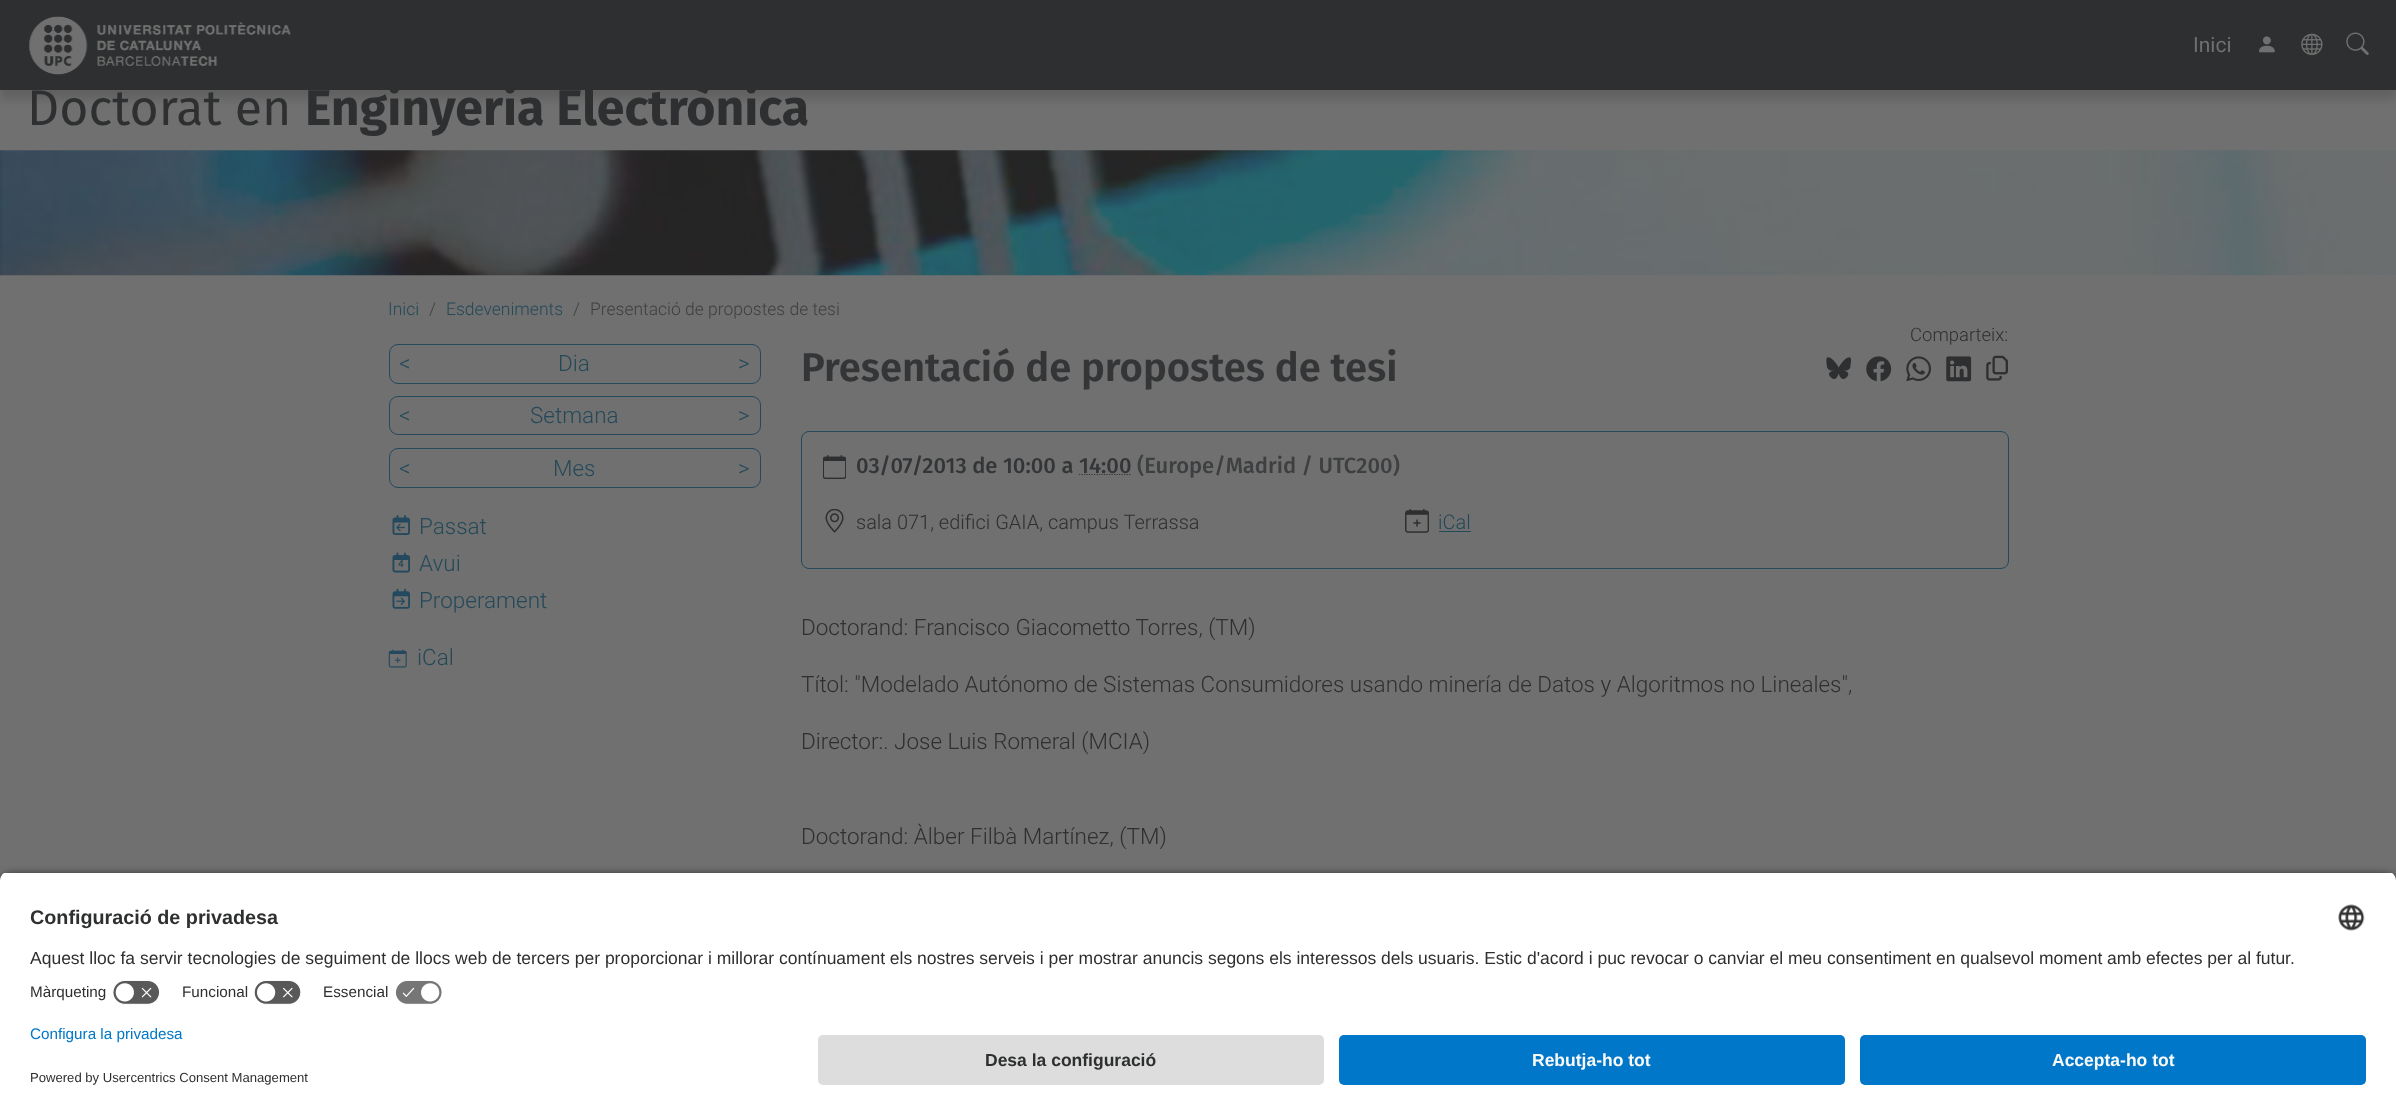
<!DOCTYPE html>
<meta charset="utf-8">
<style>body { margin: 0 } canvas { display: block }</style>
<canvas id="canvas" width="2396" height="1114"></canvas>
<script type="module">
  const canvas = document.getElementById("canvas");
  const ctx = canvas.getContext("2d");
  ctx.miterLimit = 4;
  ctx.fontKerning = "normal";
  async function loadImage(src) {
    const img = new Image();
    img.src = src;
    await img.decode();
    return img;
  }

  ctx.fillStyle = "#707070";
  ctx.fillRect(0, 0, 2396, 1114);
  ctx.fillStyle = "rgba(36, 36, 36, 0.2)";
  ctx.filter = "blur(5px)";
  ctx.beginPath();
  ctx.rect(0, 9, 2396, 90);
  ctx.fill();
  ctx.filter = "none";
  ctx.fillStyle = "#2e2f30";
  ctx.fillRect(0, 0, 2396, 90);
  ctx.drawImage(await loadImage("img1.png"), 29, 16, 263, 59);
  ctx.font = "21px Roboto";
  ctx.fillStyle = "#707070";
  ctx.fillText("Inici", 2193, 52);
  ctx.drawImage(await loadImage("img2.png"), 2259, 36, 16, 17);
  ctx.drawImage(await loadImage("img3.png"), 2301, 33, 22, 22);
  ctx.drawImage(await loadImage("img4.png"), 2346, 32, 23, 23);
  ctx.font = "50px Fira Sans";
  ctx.fillStyle = "#2e2f30";
  ctx.fillText("Doctorat en", 27, 125);
  ctx.font = "bold 50px Fira Sans";
  ctx.fillText("Enginyeria Electrònica", 305, 125);
  ctx.drawImage(await loadImage("img5.png"), 0, 150, 2396, 126);
  ctx.font = "300 17.5px Roboto";
  ctx.fillStyle = "#244959";
  ctx.fillText("Inici", 388, 315);
  ctx.fillStyle = "#3e3f40";
  ctx.fillText("/", 429, 315);
  ctx.fillStyle = "#244959";
  ctx.fillText("Esdeveniments", 446, 315);
  ctx.fillStyle = "#3e3f40";
  ctx.fillText("/", 573, 315);
  ctx.fillText("Presentació de propostes de tesi", 590, 315);
  ctx.beginPath();
  ctx.roundRect(389.5, 344.5, 371, 39, 8.5);
  ctx.strokeStyle = "#24495e";
  ctx.stroke();
  ctx.font = "300 22.5px Roboto";
  ctx.fillStyle = "#244959";
  ctx.fillText("<", 399, 371);
  ctx.fillText("Dia", 558, 371);
  ctx.fillText(">", 738, 371);
  ctx.beginPath();
  ctx.roundRect(389.5, 396.5, 371, 38, 8.5);
  ctx.stroke();
  ctx.fillText("<", 399, 423);
  ctx.fillText("Setmana", 530, 423);
  ctx.fillText(">", 738, 423);
  ctx.beginPath();
  ctx.roundRect(389.5, 448.5, 371, 39, 8.5);
  ctx.stroke();
  ctx.fillText("<", 399, 476);
  ctx.fillText("Mes", 553, 476);
  ctx.fillText(">", 738, 476);
  ctx.drawImage(await loadImage("img6.png"), 392, 515, 18, 20);
  ctx.drawImage(await loadImage("img7.png"), 396, 523, 9, 9);
  ctx.fillText("Passat", 419, 534);
  ctx.font = "500 10px Roboto";
  ctx.fillText("4", 398, 567);
  ctx.drawImage(await loadImage("img8.png"), 392, 552, 18, 21);
  ctx.font = "300 22.5px Roboto";
  ctx.fillText("Avui", 419, 571);
  ctx.drawImage(await loadImage("img9.png"), 392, 588, 18, 21);
  ctx.drawImage(await loadImage("img10.png"), 396, 597, 9, 8);
  ctx.fillText("Properament", 419, 608);
  ctx.drawImage(await loadImage("img11.png"), 388, 649, 19, 19);
  ctx.fillText("iCal", 417, 665);
  ctx.font = "300 18.5px Roboto";
  ctx.fillStyle = "#2e2f30";
  ctx.fillText("Comparteix:", 1910, 341);
  ctx.drawImage(await loadImage("img12.png"), 1826, 357, 25, 22);
  ctx.drawImage(await loadImage("img13.png"), 1866, 356, 26, 26);
  ctx.drawImage(await loadImage("img14.png"), 1906, 356, 25, 26);
  ctx.drawImage(await loadImage("img15.png"), 1946, 356, 26, 26);
  ctx.drawImage(await loadImage("img16.png"), 1986, 355, 22, 26);
  ctx.font = "600 40px Fira Sans";
  ctx.fillStyle = "#333537";
  ctx.fillText("Presentació de propostes de tesi", 801, 381);
  ctx.beginPath();
  ctx.roundRect(801.5, 431.5, 1207, 137, 7.5);
  ctx.stroke();
  ctx.drawImage(await loadImage("img17.png"), 823, 455, 23, 24);
  ctx.font = "500 22px Fira Sans";
  ctx.fillText("03/07/2013 de 10:00 a", 856, 473);
  ctx.beginPath();
  ctx.moveTo(1079, 474.5);
  ctx.lineTo(1131.5, 474.5);
  ctx.strokeStyle = "#333537";
  ctx.lineWidth = 1.2;
  ctx.setLineDash([1.25, 1.25]);
  ctx.stroke();
  ctx.fillText("14:00", 1079, 473);
  ctx.fillStyle = "#3e3f40";
  ctx.fillText("(Europe/Madrid / UTC200)", 1137, 473);
  ctx.drawImage(await loadImage("img18.png"), 825, 509, 19, 24);
  ctx.font = "300 20px Roboto";
  ctx.fillStyle = "#2e2f30";
  ctx.fillText("sala 071, edifici GAIA, campus Terrassa", 856, 529);
  ctx.drawImage(await loadImage("img19.png"), 1405, 509, 24, 24);
  ctx.fillStyle = "#244959";
  ctx.fillText("iCal", 1438, 529);
  ctx.fillRect(1439, 531, 32, 1);
  ctx.font = "300 22.5px Roboto";
  ctx.fillStyle = "#2e2f30";
  ctx.fillText("Doctorand: Francisco Giacometto Torres, (TM)", 801, 635);
  ctx.fillText("Títol: \"Modelado Autónomo de Sistemas Consumidores usando minería de Datos y Algoritmos no Lineales\",", 801, 692);
  ctx.fillText("Director:. Jose Luis Romeral (MCIA)", 801, 749);
  ctx.fillText("Doctorand: Àlber Filbà Martínez, (TM)", 801, 844);
  ctx.fillStyle = "rgba(0, 0, 0, 0.8)";
  ctx.filter = "blur(4.5px)";
  ctx.beginPath();
  ctx.roundRect(0, 875, 2396, 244, 10);
  ctx.fill();
  ctx.filter = "none";
  ctx.save();
  ctx.beginPath();
  ctx.roundRect(0, 871, 2396, 154, [10, 10, 0, 0]);
  ctx.clip();
  ctx.fillStyle = "#ffffff";
  ctx.fillRect(0, 873, 2396, 152);
  ctx.fillRect(0, 873, 2396, 102);
  ctx.restore();
  ctx.font = "bold 19.75px Liberation Sans";
  ctx.fillStyle = "#2e2f30";
  ctx.fillText("Configuració de privadesa", 30, 924);
  ctx.drawImage(await loadImage("img20.png"), 2338, 904, 27, 27);
  ctx.font = "17.5px Liberation Sans";
  ctx.fillText("Aquest lloc fa servir tecnologies de seguiment de llocs web de tercers per proporcionar i millorar contínuament els nostres serveis i per mostrar anuncis segons els interessos dels usuaris. Estic d'acord i puc revocar o canviar el meu consentiment en qualsevol moment amb efectes per al futur.", 30, 964);
  ctx.font = "15.25px Liberation Sans";
  ctx.fillText("Màrqueting", 30, 997);
  ctx.drawImage(await loadImage("img21.png"), 112, 980, 48, 25);
  ctx.fillText("Funcional", 182, 997);
  ctx.drawImage(await loadImage("img22.png"), 254, 980, 47, 25);
  ctx.fillText("Essencial", 323, 997);
  ctx.drawImage(await loadImage("img23.png"), 395, 980, 48, 25);
  ctx.fillStyle = "#ffffff";
  ctx.fillRect(0, 1025, 2396, 89);
  ctx.fillStyle = "#0077c8";
  ctx.fillText("Configura la privadesa", 30, 1039);
  ctx.font = "13.1px Liberation Sans";
  ctx.fillStyle = "#2e2f30";
  ctx.fillText("Powered by Usercentrics Consent Management", 30, 1082);
  ctx.fillStyle = "#dddddd";
  ctx.beginPath();
  ctx.roundRect(818, 1035, 506, 50, 5);
  ctx.fill();
  ctx.font = "bold 17.5px Liberation Sans";
  ctx.fillStyle = "#2e2f30";
  ctx.fillText("Desa la configuració", 985, 1066);
  ctx.fillStyle = "#0077c8";
  ctx.beginPath();
  ctx.roundRect(1339, 1035, 506, 50, 5);
  ctx.fill();
  ctx.fillStyle = "#fafafa";
  ctx.fillText("Rebutja-ho tot", 1532, 1066);
  ctx.fillStyle = "#0077c8";
  ctx.beginPath();
  ctx.roundRect(1860, 1035, 506, 50, 5);
  ctx.fill();
  ctx.fillStyle = "#fafafa";
  ctx.fillText("Accepta-ho tot", 2052, 1066);
</script>
